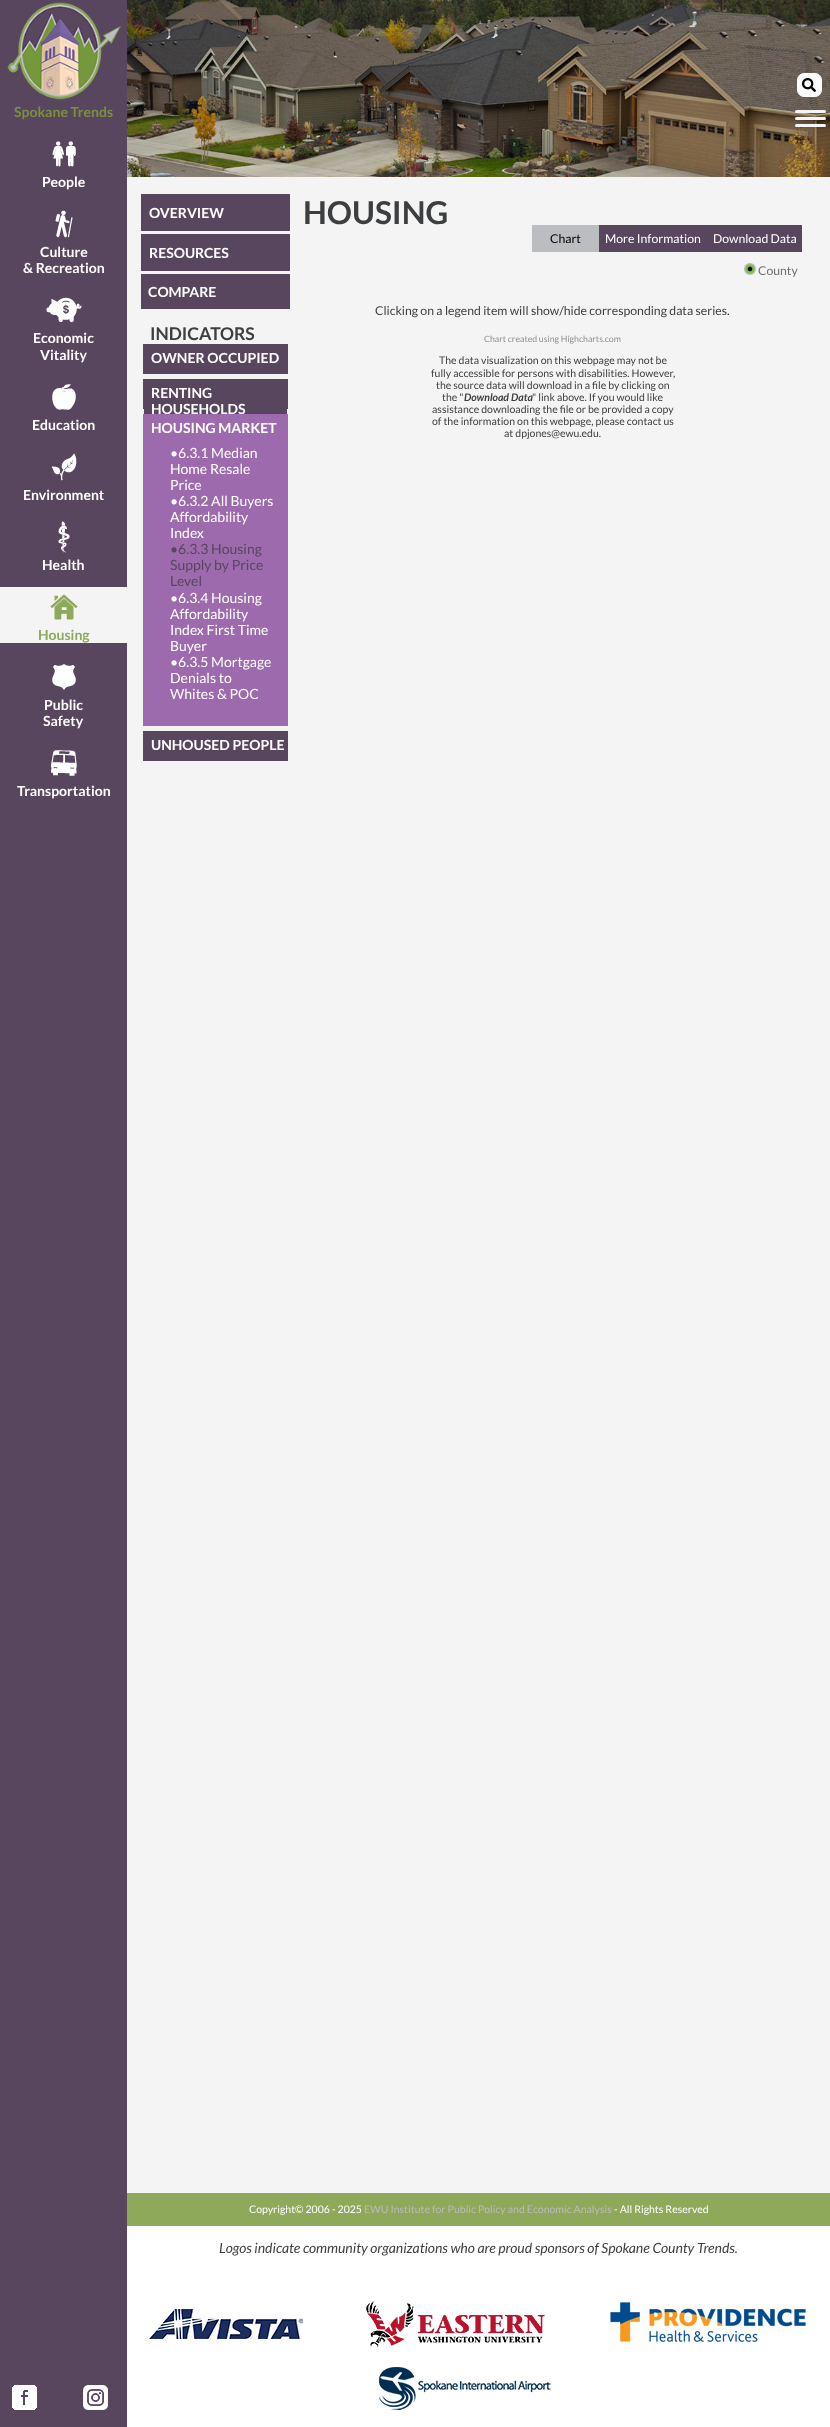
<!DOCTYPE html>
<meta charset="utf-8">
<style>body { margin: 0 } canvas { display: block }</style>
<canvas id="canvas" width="830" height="2427"></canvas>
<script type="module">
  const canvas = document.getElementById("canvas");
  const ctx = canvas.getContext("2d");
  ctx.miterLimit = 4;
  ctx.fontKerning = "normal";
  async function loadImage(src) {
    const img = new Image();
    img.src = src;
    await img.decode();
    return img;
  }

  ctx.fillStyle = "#f4f4f4";
  ctx.fillRect(0, 0, 830, 2427);
  ctx.fillStyle = "#58465e";
  ctx.fillRect(0, 0, 127, 2427);
  ctx.drawImage(await loadImage("img1.png"), 7, 2, 114, 98);
  ctx.font = "bold 14px Lato";
  ctx.fillStyle = "#7a903e";
  ctx.fillText("Spokane Trends", 14, 117);
  ctx.drawImage(await loadImage("img2.png"), 52, 141, 24, 26);
  ctx.fillStyle = "#ffffff";
  ctx.fillText("People", 42, 187);
  ctx.drawImage(await loadImage("img3.png"), 55, 210, 18, 28);
  ctx.fillText("Culture", 40, 257);
  ctx.fillText("& Recreation", 23, 273);
  ctx.drawImage(await loadImage("img4.png"), 46, 297, 36, 26);
  ctx.fillText("Economic", 33, 343);
  ctx.fillText("Vitality", 40, 360);
  ctx.drawImage(await loadImage("img5.png"), 52, 384, 24, 26);
  ctx.fillText("Education", 32, 430);
  ctx.drawImage(await loadImage("img6.png"), 51, 453, 26, 28);
  ctx.fillText("Environment", 23, 500);
  ctx.drawImage(await loadImage("img7.png"), 58, 521, 12, 32);
  ctx.fillText("Health", 42, 570);
  ctx.fillStyle = "#f4f4f4";
  ctx.fillRect(0, 587, 127, 56);
  ctx.drawImage(await loadImage("img8.png"), 50, 594, 28, 26);
  ctx.fillStyle = "#8ea959";
  ctx.fillText("Housing", 38, 640);
  ctx.drawImage(await loadImage("img9.png"), 52, 664, 24, 26);
  ctx.fillStyle = "#ffffff";
  ctx.fillText("Public", 44, 710);
  ctx.fillText("Safety", 43, 726);
  ctx.drawImage(await loadImage("img10.png"), 51, 750, 26, 26);
  ctx.fillText("Transportation", 17, 796);
  ctx.drawImage(await loadImage("img11.png"), 12, 2385, 25, 25);
  ctx.drawImage(await loadImage("img12.png"), 83, 2385, 25, 25);
  ctx.drawImage(await loadImage("img13.png"), 127, 0, 703, 177);
  ctx.fillStyle = "#fcfcfc";
  ctx.beginPath();
  ctx.roundRect(797.5, 73.5, 24, 23, 6.5);
  ctx.fill();
  ctx.strokeStyle = "#fcfcfc";
  ctx.stroke();
  ctx.drawImage(await loadImage("img14.png"), 802, 78, 14, 14);
  ctx.fillStyle = "#f4f4f4";
  ctx.beginPath();
  ctx.roundRect(795, 117, 31, 3, 1.5);
  ctx.fill();
  ctx.beginPath();
  ctx.roundRect(795, 110, 31, 3, 1.5);
  ctx.fill();
  ctx.beginPath();
  ctx.roundRect(795, 124, 31, 3, 1.5);
  ctx.fill();
  ctx.fillStyle = "#58465e";
  ctx.fillRect(141, 194, 149, 37);
  ctx.fillStyle = "#ffffff";
  ctx.fillText("OVERVIEW", 149, 218);
  ctx.fillStyle = "#58465e";
  ctx.fillRect(141, 234, 149, 37);
  ctx.fillStyle = "#ffffff";
  ctx.fillText("RESOURCES", 149, 258);
  ctx.fillStyle = "#58465e";
  ctx.fillRect(141, 274, 149, 35);
  ctx.fillStyle = "#ffffff";
  ctx.fillText("COMPARE", 148, 297);
  ctx.font = "bold 17.5px Lato";
  ctx.fillStyle = "#3d3e40";
  ctx.fillText("INDICATORS", 150, 340);
  ctx.fillStyle = "#58465e";
  ctx.fillRect(143, 344, 145, 30);
  ctx.font = "bold 14px Lato";
  ctx.fillStyle = "#ffffff";
  ctx.fillText("OWNER OCCUPIED", 151, 363);
  ctx.fillStyle = "#58465e";
  ctx.fillRect(143, 379, 145, 30);
  ctx.fillRect(144, 409, 143, 5);
  ctx.fillStyle = "#ffffff";
  ctx.fillText("RENTING", 151, 398);
  ctx.fillText("HOUSEHOLDS", 151, 414);
  ctx.fillStyle = "#9d6aad";
  ctx.fillRect(143, 414, 145, 312);
  ctx.fillStyle = "#ffffff";
  ctx.fillText("HOUSING MARKET", 151, 433);
  ctx.font = "14px Lato";
  ctx.fillText("•6.3.1 Median", 170, 458);
  ctx.fillText("Home Resale", 170, 474);
  ctx.fillText("Price", 170, 490);
  ctx.fillText("•6.3.2 All Buyers", 170, 506);
  ctx.fillText("Affordability", 170, 522);
  ctx.fillText("Index", 170, 538);
  ctx.fillStyle = "#58465e";
  ctx.fillText("•6.3.3 Housing", 170, 554);
  ctx.fillText("Supply by Price", 170, 570);
  ctx.fillText("Level", 170, 586);
  ctx.fillStyle = "#ffffff";
  ctx.fillText("•6.3.4 Housing", 170, 603);
  ctx.fillText("Affordability", 170, 619);
  ctx.fillText("Index First Time", 170, 635);
  ctx.fillText("Buyer", 170, 651);
  ctx.fillText("•6.3.5 Mortgage", 170, 667);
  ctx.fillText("Denials to", 170, 683);
  ctx.fillText("Whites & POC", 170, 699);
  ctx.fillStyle = "#58465e";
  ctx.fillRect(143, 731, 145, 30);
  ctx.font = "bold 14px Lato";
  ctx.fillStyle = "#ffffff";
  ctx.fillText("UNHOUSED PEOPLE", 151, 750);
  ctx.font = "bold 31.5px Lato";
  ctx.fillStyle = "#3d3e40";
  ctx.fillText("HOUSING", 303, 224);
  ctx.fillStyle = "#bbbdc0";
  ctx.fillRect(532, 225, 67, 27);
  ctx.font = "12.25px Lato";
  ctx.fillStyle = "#000000";
  ctx.fillText("Chart", 550, 243);
  ctx.fillStyle = "#58465e";
  ctx.fillRect(599, 225, 203, 27);
  ctx.fillStyle = "#ffffff";
  ctx.fillText("More Information", 605, 243);
  ctx.fillText("Download Data", 713, 243);
  ctx.drawImage(await loadImage("img15.png"), 744, 263, 12, 12);
  ctx.fillStyle = "#6d6e70";
  ctx.fillText("County", 758, 275);
  ctx.fillStyle = "#3d3e40";
  ctx.fillText("Clicking on a legend item will show/hide corresponding data series.", 375, 315);
  ctx.font = "8.75px Lato";
  ctx.fillStyle = "#909090";
  ctx.fillText("Chart created using Highcharts.com", 484, 342);
  ctx.font = "10.5px Lato";
  ctx.fillStyle = "#3d3e40";
  ctx.fillText("The data visualization on this webpage may not be", 439, 364);
  ctx.fillText("fully accessible for persons with disabilities. However,", 431, 377);
  ctx.fillText("the source data will download in a file by clicking on", 436, 389);
  ctx.fillText("the \"", 442, 401);
  ctx.font = "italic bold 10.5px Lato";
  ctx.fillText("Download Data", 464, 401);
  ctx.font = "10.5px Lato";
  ctx.fillText("\" link above. If you would like", 532, 401);
  ctx.fillText("assistance downloading the file or be provided a copy", 432, 413);
  ctx.fillText("of the information on this webpage, please contact us", 432, 425);
  ctx.fillText("at dpjones@ewu.edu.", 504, 437);
  ctx.fillStyle = "#8ea959";
  ctx.fillRect(127, 2193, 703, 33);
  ctx.fillStyle = "#ffffff";
  ctx.fillText("Copyright© 2006 - 2025", 249, 2213);
  ctx.fillStyle = "#bbbbbb";
  ctx.fillText("EWU Institute for Public Policy and Economic Analysis", 364, 2213);
  ctx.fillStyle = "#ffffff";
  ctx.fillText("- All Rights Reserved", 614, 2213);
  ctx.fillRect(127, 2226, 703, 201);
  ctx.font = "italic 14px Lato";
  ctx.fillStyle = "#3d3e40";
  ctx.fillText("Logos indicate community organizations who are proud sponsors of Spokane County Trends.", 219, 2253);
  ctx.drawImage(await loadImage("img16.png"), 149, 2309, 154, 30);
  ctx.drawImage(await loadImage("img17.png"), 366, 2301, 179, 46);
  ctx.drawImage(await loadImage("img18.png"), 610, 2302, 196, 40);
  ctx.drawImage(await loadImage("img19.png"), 379, 2367, 172, 43);
</script>
